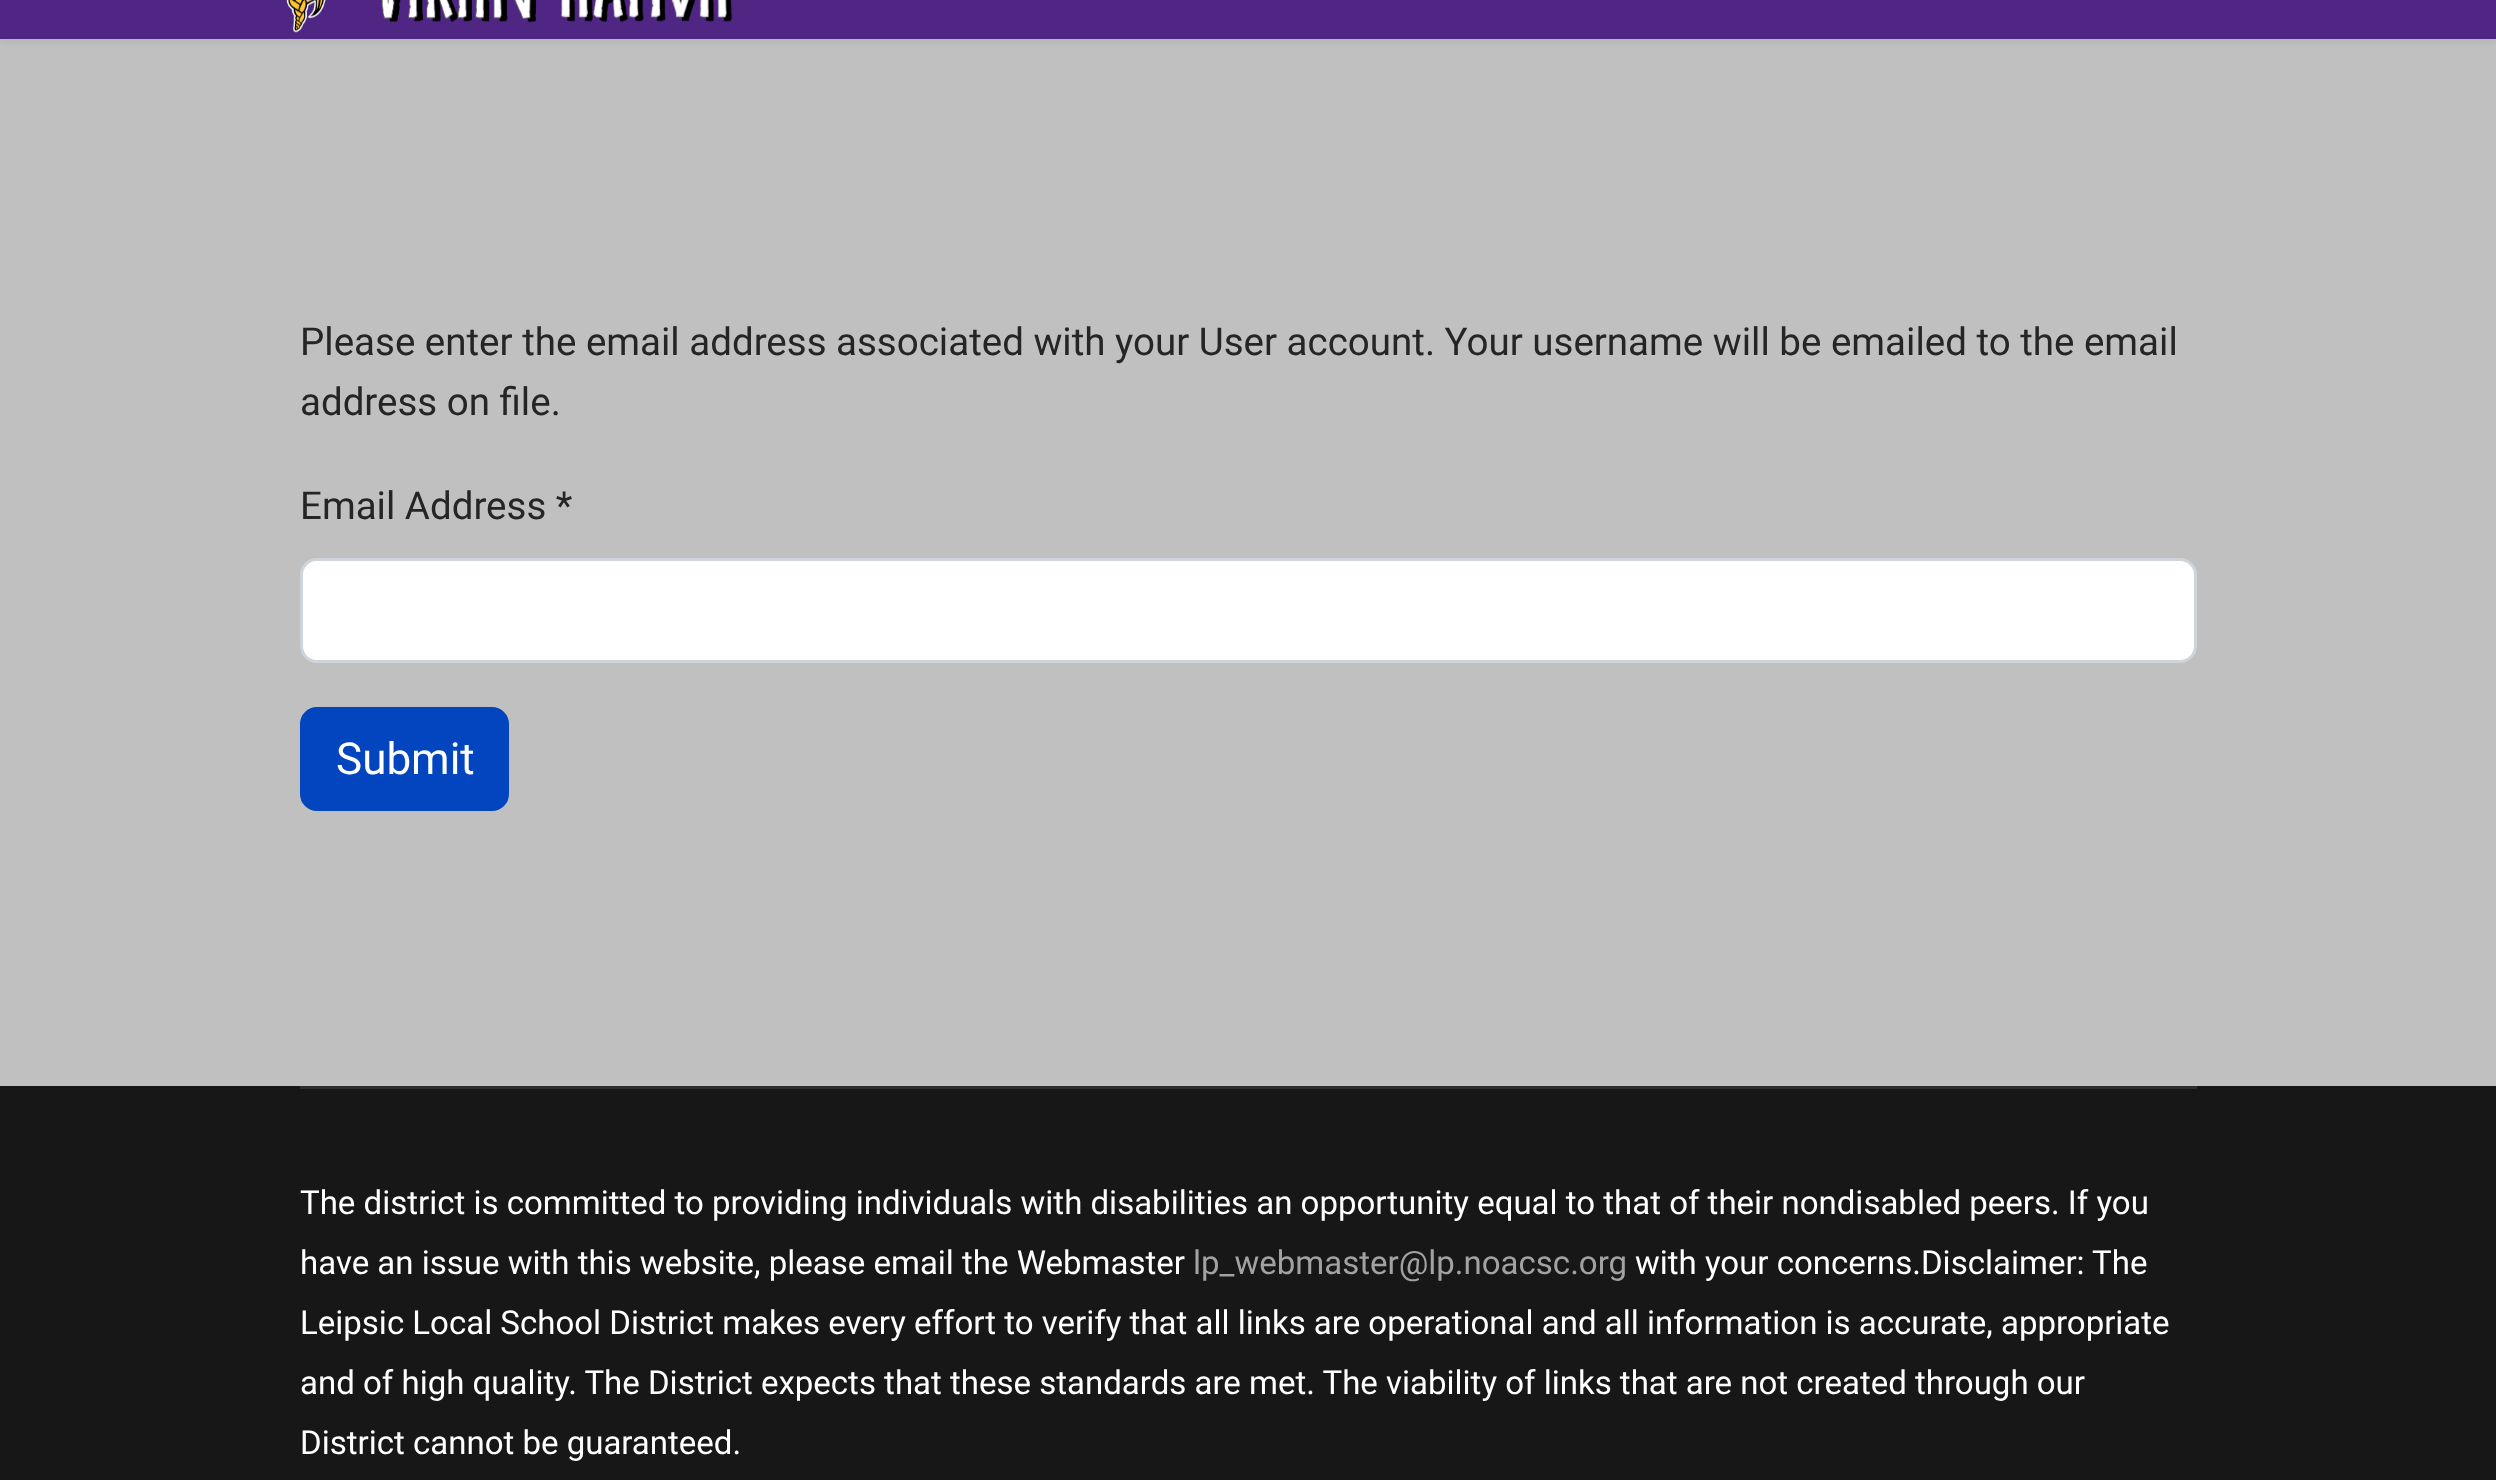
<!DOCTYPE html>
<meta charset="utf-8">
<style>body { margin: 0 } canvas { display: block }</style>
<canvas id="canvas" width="2496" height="1480"></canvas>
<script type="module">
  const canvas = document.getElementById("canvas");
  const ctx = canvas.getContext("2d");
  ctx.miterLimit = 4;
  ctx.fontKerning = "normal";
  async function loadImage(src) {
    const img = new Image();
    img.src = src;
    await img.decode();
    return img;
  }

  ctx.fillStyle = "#c0c0c0";
  ctx.fillRect(0, 0, 2496, 1480);
  ctx.fillStyle = "rgba(0, 0, 0, 0.1)";
  ctx.filter = "blur(5.5px)";
  ctx.beginPath();
  ctx.rect(0, -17, 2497, 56);
  ctx.fill();
  ctx.filter = "none";
  ctx.fillStyle = "#4f2683";
  ctx.fillRect(0, 0, 2496, 39);
  ctx.drawImage(await loadImage("img1.png"), 286, 0, 446, 33);
  ctx.font = "38.5px Roboto";
  ctx.fillStyle = "#252525";
  ctx.fillText("Please enter the email address associated with your User account. Your username will be emailed to the email", 300, 355);
  ctx.fillText("address on file.", 300, 415);
  ctx.fillText("Email Address *", 300, 519);
  ctx.fillStyle = "#ffffff";
  ctx.beginPath();
  ctx.roundRect(301.5, 559.5, 1894, 102, 15.5);
  ctx.fill();
  ctx.strokeStyle = "#ced4da";
  ctx.lineWidth = 3;
  ctx.stroke();
  ctx.fillStyle = "#0345bf";
  ctx.beginPath();
  ctx.roundRect(301.5, 708.5, 206, 101, 15.5);
  ctx.fill();
  ctx.strokeStyle = "#0345bf";
  ctx.stroke();
  ctx.font = "44px Roboto";
  ctx.fillStyle = "#ffffff";
  ctx.fillText("Submit", 336, 774);
  ctx.fillStyle = "#171717";
  ctx.fillRect(0, 1086, 2496, 394);
  ctx.fillStyle = "#2e2e2e";
  ctx.fillRect(300, 1086, 1897, 3);
  ctx.font = "33px Roboto";
  ctx.fillStyle = "#ffffff";
  ctx.fillText("The district is committed to providing individuals with disabilities an opportunity equal to that of their nondisabled peers. If you", 300, 1214);
  ctx.fillText("have an issue with this website, please email the Webmaster", 300, 1274);
  ctx.fillStyle = "#a2a2a2";
  ctx.fillText("lp_webmaster@lp.noacsc.org", 1193, 1274);
  ctx.fillStyle = "#ffffff";
  ctx.fillText("with your concerns.Disclaimer: The", 1635, 1274);
  ctx.fillText("Leipsic Local School District makes every effort to verify that all links are operational and all information is accurate, appropriate", 300, 1334);
  ctx.fillText("and of high quality. The District expects that these standards are met. The viability of links that are not created through our", 300, 1394);
  ctx.fillText("District cannot be guaranteed.", 300, 1454);
</script>
